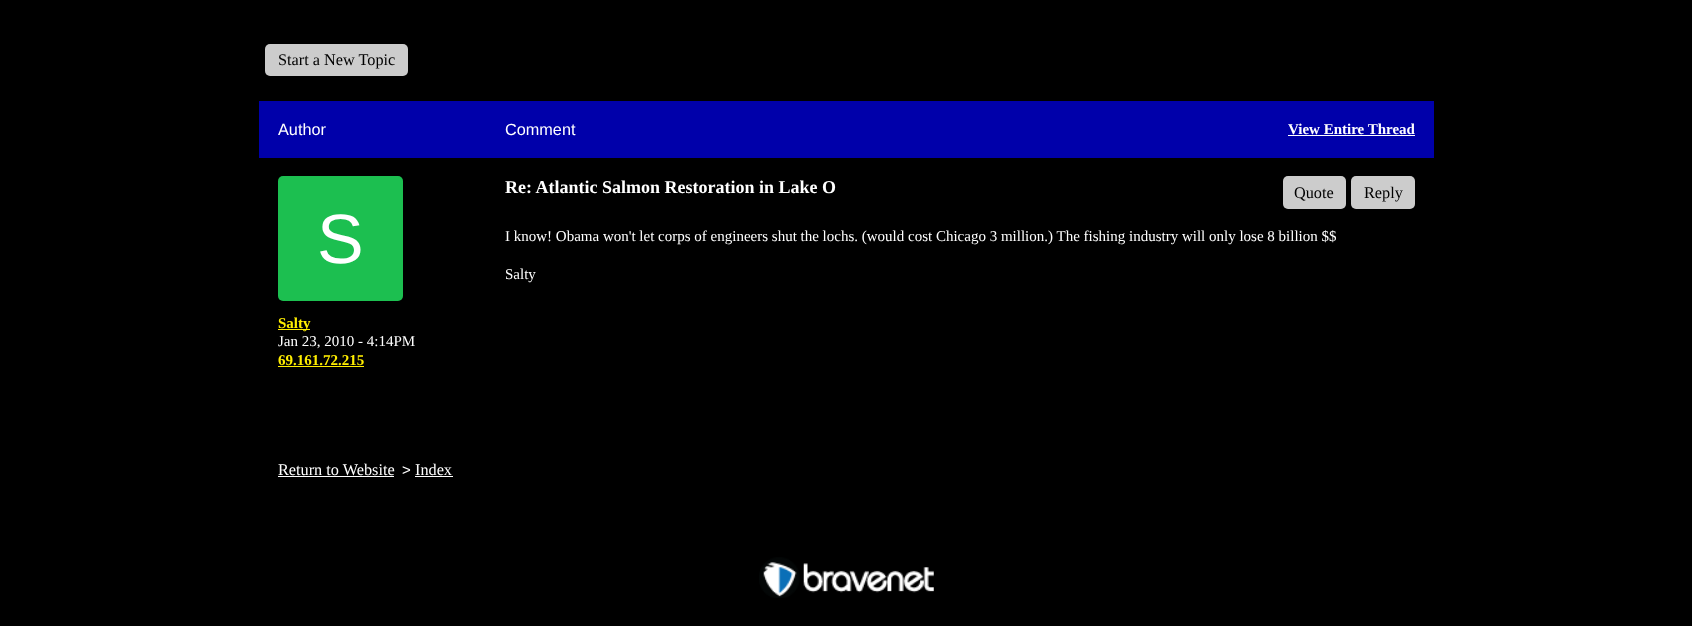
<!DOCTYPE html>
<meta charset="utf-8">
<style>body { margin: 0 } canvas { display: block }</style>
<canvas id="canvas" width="1692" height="626"></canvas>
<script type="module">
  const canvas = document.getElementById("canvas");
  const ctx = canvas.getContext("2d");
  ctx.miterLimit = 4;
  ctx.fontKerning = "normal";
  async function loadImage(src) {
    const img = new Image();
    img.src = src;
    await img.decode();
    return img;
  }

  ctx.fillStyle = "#000000";
  ctx.fillRect(0, 0, 1692, 626);
  ctx.fillStyle = "#cccccc";
  ctx.beginPath();
  ctx.roundRect(265, 44, 143, 32, 5);
  ctx.fill();
  ctx.font = "16.25px Liberation Serif";
  ctx.fillStyle = "#000000";
  ctx.fillText("Start a New Topic", 278, 65);
  ctx.fillStyle = "#0000aa";
  ctx.fillRect(259, 101, 1175, 57);
  ctx.font = "16.25px Liberation Sans";
  ctx.fillStyle = "#ffffff";
  ctx.fillText("Author", 278, 135);
  ctx.fillText("Comment", 505, 135);
  ctx.font = "bold 15px Liberation Serif";
  ctx.fillText("View Entire Thread", 1288, 134);
  ctx.fillRect(1288, 135, 127, 1);
  ctx.fillStyle = "#1cbf50";
  ctx.beginPath();
  ctx.roundRect(278, 176, 125, 125, 5);
  ctx.fill();
  ctx.font = "70px Liberation Sans";
  ctx.fillStyle = "#ffffff";
  ctx.fillText("S", 317, 263);
  ctx.fillStyle = "#ffee00";
  ctx.fillRect(278, 329, 32, 1);
  ctx.font = "bold 15px Liberation Serif";
  ctx.fillText("Salty", 278, 328);
  ctx.font = "15px Liberation Serif";
  ctx.fillStyle = "#ffffff";
  ctx.fillText("Jan 23, 2010 - 4:14PM", 278, 346);
  ctx.font = "bold 15px Liberation Serif";
  ctx.fillStyle = "#ffee00";
  ctx.fillText("69.161.72.215", 278, 365);
  ctx.fillRect(278, 366, 86, 1);
  ctx.font = "bold 18px Liberation Serif";
  ctx.fillStyle = "#ffffff";
  ctx.fillText("Re: Atlantic Salmon Restoration in Lake O", 505, 193);
  ctx.fillStyle = "#cccccc";
  ctx.beginPath();
  ctx.roundRect(1283, 176, 63, 33, 5);
  ctx.fill();
  ctx.font = "16.25px Liberation Serif";
  ctx.fillStyle = "#000000";
  ctx.fillText("Quote", 1294, 198);
  ctx.fillStyle = "#cccccc";
  ctx.beginPath();
  ctx.roundRect(1351, 176, 64, 33, 5);
  ctx.fill();
  ctx.fillStyle = "#000000";
  ctx.fillText("Reply", 1364, 198);
  ctx.font = "15px Liberation Serif";
  ctx.fillStyle = "#ffffff";
  ctx.fillText("I know! Obama won't let corps of engineers shut the lochs. (would cost Chicago 3 million.) The fishing industry will only lose 8 billion $$", 505, 241);
  ctx.fillText("Salty", 505, 279);
  ctx.font = "16.25px Liberation Serif";
  ctx.fillText("Return to Website", 278, 475);
  ctx.fillRect(278, 476, 116, 1);
  ctx.font = "15px Liberation Sans";
  ctx.fillText(">", 402, 475);
  ctx.font = "16.25px Liberation Serif";
  ctx.fillText("Index", 415, 475);
  ctx.fillRect(415, 476, 38, 1);
  ctx.drawImage(await loadImage("img1.png"), 759, 557, 175, 41);
</script>
